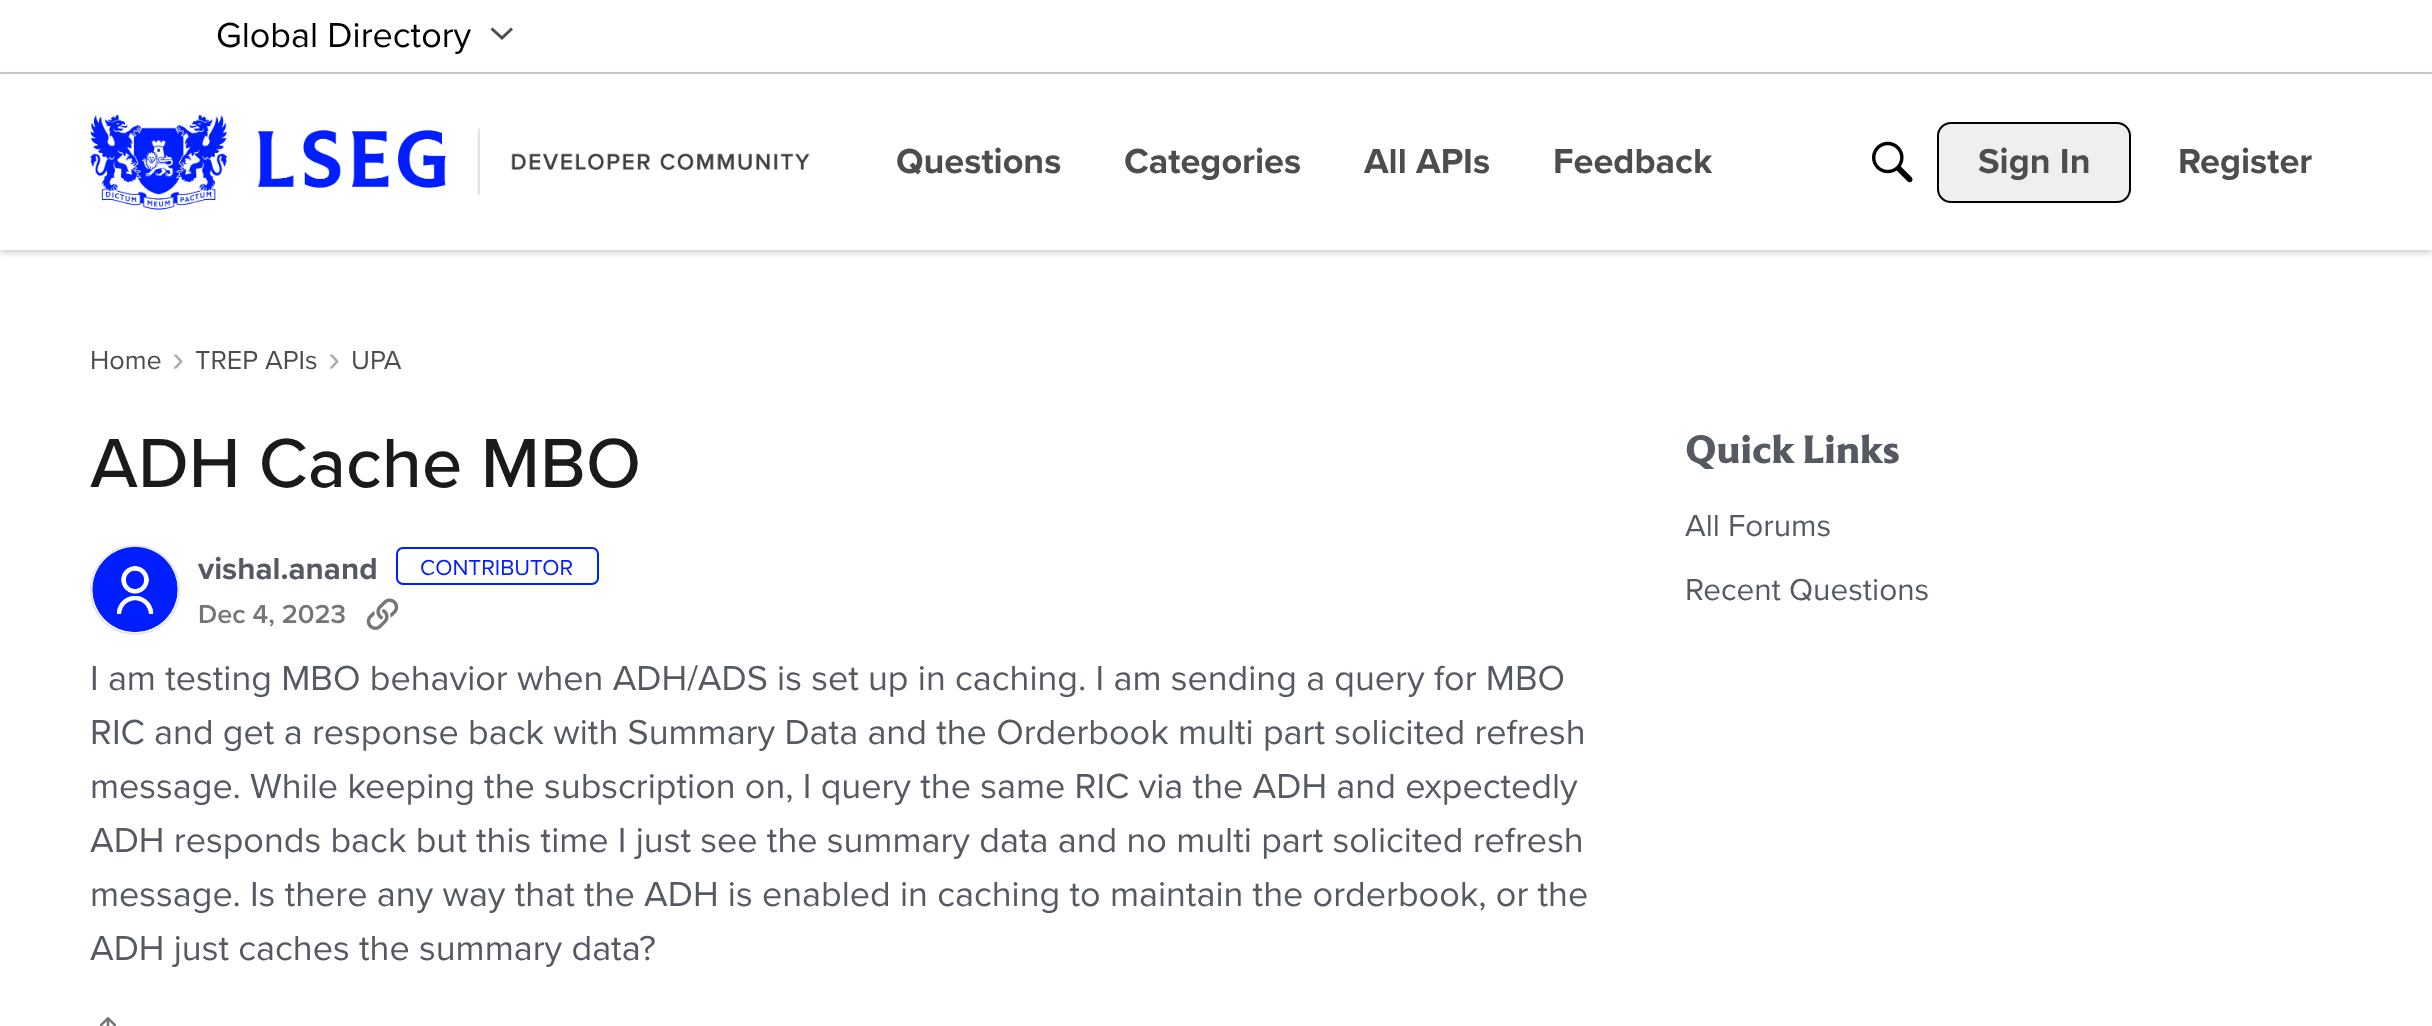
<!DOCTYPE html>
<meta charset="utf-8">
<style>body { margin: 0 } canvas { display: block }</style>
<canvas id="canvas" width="2432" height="1026"></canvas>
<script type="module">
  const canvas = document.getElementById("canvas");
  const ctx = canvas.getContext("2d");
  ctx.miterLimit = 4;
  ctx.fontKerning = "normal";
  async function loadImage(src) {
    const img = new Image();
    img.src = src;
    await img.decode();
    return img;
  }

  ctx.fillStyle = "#ffffff";
  ctx.fillRect(0, 0, 2432, 1026);
  ctx.fillStyle = "#cccccc";
  ctx.fillRect(0, 72, 2432, 2);
  ctx.font = "36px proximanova";
  ctx.fillStyle = "#000000";
  ctx.fillText("Global Directory", 216, 47);
  ctx.fillStyle = "#4d4d4d";
  ctx.beginPath();
  ctx.moveTo(503, 35);
  ctx.lineTo(511, 27.5);
  ctx.lineTo(513, 29.5);
  ctx.lineTo(502, 40);
  ctx.lineTo(490.5, 29.5);
  ctx.lineTo(492.5, 27.5);
  ctx.lineTo(502, 36);
  ctx.closePath();
  ctx.fill();
  ctx.fillStyle = "rgba(0, 0, 0, 0.22)";
  ctx.filter = "blur(3.5px)";
  ctx.beginPath();
  ctx.rect(0, 77, 2432, 175);
  ctx.fill();
  ctx.filter = "none";
  ctx.fillStyle = "#ffffff";
  ctx.fillRect(0, 74, 2432, 176);
  ctx.drawImage(await loadImage("img1.png"), 90, 115, 720, 95);
  ctx.font = "bold 36px proximanova";
  ctx.fillStyle = "#4d4d4d";
  ctx.fillText("Questions", 896, 173);
  ctx.fillText("Categories", 1124, 173);
  ctx.fillText("All APIs", 1364, 173);
  ctx.fillText("Feedback", 1553, 173);
  ctx.drawImage(await loadImage("img2.png"), 1872, 141, 41, 42);
  ctx.fillStyle = "#eeefef";
  ctx.beginPath();
  ctx.roundRect(1938, 123, 192, 79, 13);
  ctx.fill();
  ctx.strokeStyle = "#000000";
  ctx.lineWidth = 2;
  ctx.stroke();
  ctx.fillStyle = "#4d4d4d";
  ctx.fillText("Sign In", 1978, 173);
  ctx.fillText("Register", 2178, 173);
  ctx.font = "27px proximanova";
  ctx.fillText("Home", 90, 369);
  ctx.font = "36px Liberation Sans";
  ctx.fillStyle = "#aaadb1";
  ctx.fillText("›", 172, 371);
  ctx.font = "27px proximanova";
  ctx.fillStyle = "#4d4d4d";
  ctx.fillText("TREP APIs", 195, 369);
  ctx.font = "36px Liberation Sans";
  ctx.fillStyle = "#aaadb1";
  ctx.fillText("›", 328, 371);
  ctx.font = "27px proximanova";
  ctx.fillStyle = "#4d4d4d";
  ctx.fillText("UPA", 351, 369);
  ctx.font = "500 72px Proxima Nova";
  ctx.fillStyle = "#1a1a1a";
  ctx.fillText("ADH Cache MBO", 90, 487);
  ctx.beginPath();
  ctx.arc(135, 590, 44, 0, Math.PI * 2);
  ctx.strokeStyle = "#e6e6e8";
  ctx.stroke();
  ctx.drawImage(await loadImage("img3.png"), 92, 546, 86, 87);
  ctx.font = "bold 31.5px proximanova";
  ctx.fillStyle = "#555a62";
  ctx.fillText("vishal.anand", 198, 579);
  ctx.beginPath();
  ctx.roundRect(397, 548, 201, 36, 6);
  ctx.strokeStyle = "#001eff";
  ctx.stroke();
  ctx.font = "22.5px proximanova";
  ctx.fillStyle = "#001eff";
  ctx.fillText("CONTRIBUTOR", 420, 575);
  ctx.font = "600 27px Proxima Nova";
  ctx.fillStyle = "#767676";
  ctx.fillText("Dec 4, 2023", 198, 623);
  ctx.drawImage(await loadImage("img4.png"), 366, 598, 33, 32);
  ctx.font = "36px proximanova";
  ctx.fillStyle = "#555a62";
  ctx.fillText("I am testing MBO behavior when ADH/ADS is set up in caching. I am sending a query for MBO", 90, 690);
  ctx.fillText("RIC and get a response back with Summary Data and the Orderbook multi part solicited refresh", 90, 744);
  ctx.fillText("message. While keeping the subscription on, I query the same RIC via the ADH and expectedly", 90, 798);
  ctx.fillText("ADH responds back but this time I just see the summary data and no multi part solicited refresh", 90, 852);
  ctx.fillText("message. Is there any way that the ADH is enabled in caching to maintain the orderbook, or the", 90, 906);
  ctx.fillText("ADH just caches the summary data?", 90, 960);
  ctx.drawImage(await loadImage("img5.png"), 99, 1017, 18, 9);
  ctx.font = "bold 40.5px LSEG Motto";
  ctx.fillText("Quick Links", 1685, 463);
  ctx.font = "31.5px proximanova";
  ctx.fillText("All Forums", 1685, 536);
  ctx.fillText("Recent Questions", 1685, 600);
</script>
